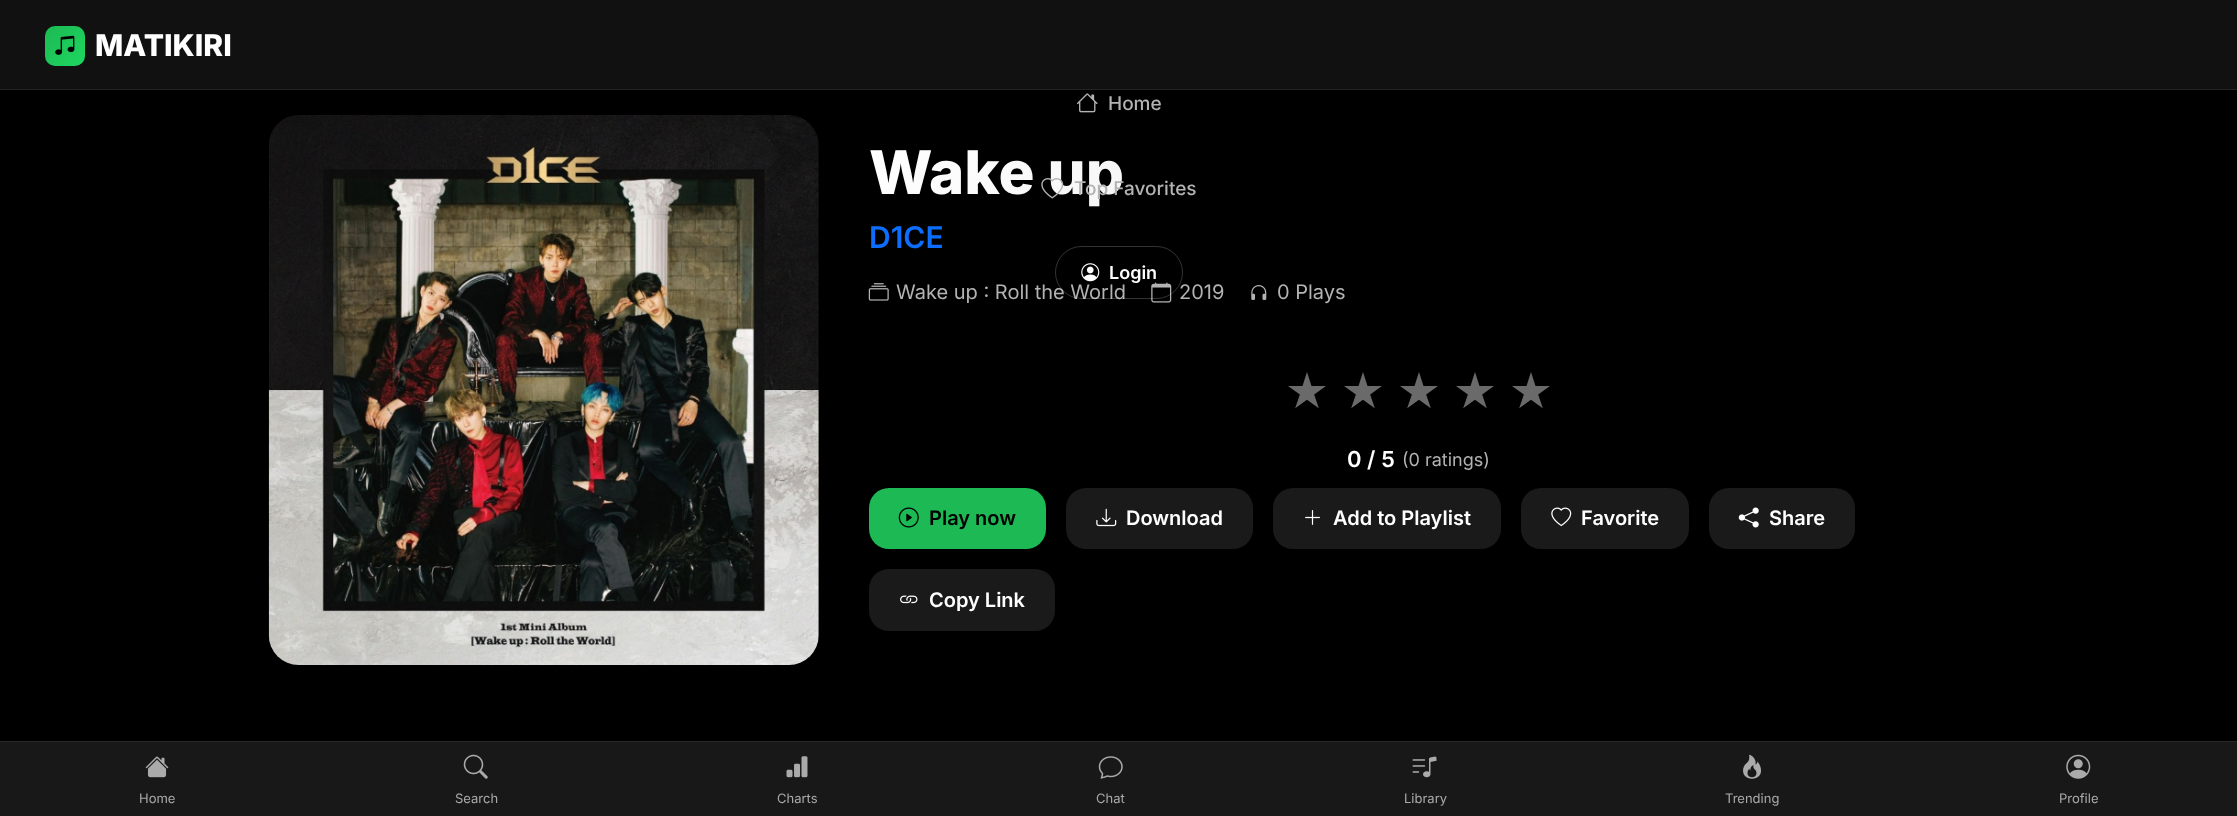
<!DOCTYPE html>
<meta charset="utf-8">
<style>body { margin: 0 } canvas { display: block }</style>
<canvas id="canvas" width="2237" height="816"></canvas>
<script type="module">
  const canvas = document.getElementById("canvas");
  const ctx = canvas.getContext("2d");
  ctx.miterLimit = 4;
  ctx.fontKerning = "normal";
  async function loadImage(src) {
    const img = new Image();
    img.src = src;
    await img.decode();
    return img;
  }
  let gradient;

  ctx.fillStyle = "#000000";
  ctx.fillRect(0, 0, 2237, 816);
  ctx.fillStyle = "#111111";
  ctx.fillRect(0, 0, 2237, 89);
  ctx.fillStyle = "#242424";
  ctx.fillRect(0, 89, 2237, 1);
  gradient = ctx.createLinearGradient(45, 26, 85, 66);
  gradient.addColorStop(0, "#1db954");
  gradient.addColorStop(1, "#1ed760");
  ctx.fillStyle = gradient;
  ctx.beginPath();
  ctx.roundRect(45, 26, 40, 40, 10);
  ctx.fill();
  ctx.drawImage(await loadImage("img1.png"), 55, 35, 20, 20);
  ctx.font = "800 30px Inter";
  ctx.fillStyle = "#ffffff";
  ctx.fillText("MATIKIRI", 95, 56);
  ctx.drawImage(await loadImage("img2.png"), 1077, 93, 21, 20);
  ctx.font = "500 19px Inter";
  ctx.fillStyle = "#b3b3b3";
  ctx.fillText("Home", 1108, 110);
  ctx.font = "800 60px Inter";
  gradient = ctx.createLinearGradient(1127, -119, 1710, 464);
  gradient.addColorStop(0, "#ffffff");
  gradient.addColorStop(1, "#e0e0e0");
  ctx.fillStyle = gradient;
  ctx.fillText("Wake up", 869, 194);
  ctx.drawImage(await loadImage("img3.png"), 1041, 178, 23, 21);
  ctx.font = "500 19px Inter";
  ctx.fillStyle = "#b3b3b3";
  ctx.fillText("Top Favorites", 1074, 195);
  ctx.font = "20px Inter";
  ctx.fillText("Wake up : Roll the World", 896, 299);
  ctx.drawImage(await loadImage("img7.png"), 1151, 282, 21, 21);
  ctx.fillText("2019", 1179, 299);
  ctx.beginPath();
  ctx.roundRect(1055.5, 246.5, 127, 52, 26);
  ctx.strokeStyle = "rgba(255, 255, 255, 0.2)";
  ctx.stroke();
  ctx.drawImage(await loadImage("img4.png"), 1081, 263, 19, 19);
  ctx.font = "600 18px Inter";
  ctx.fillStyle = "#ffffff";
  ctx.fillText("Login", 1109, 279);
  ctx.drawImage(await loadImage("img5.png"), 268, 115, 551, 550);
  ctx.font = "600 30px Inter";
  ctx.fillStyle = "#0d6efd";
  ctx.fillText("D1CE", 869, 248);
  ctx.drawImage(await loadImage("img6.png"), 868, 283, 21, 18);
  ctx.drawImage(await loadImage("img8.png"), 1251, 285, 16, 15);
  ctx.font = "20px Inter";
  ctx.fillStyle = "#b3b3b3";
  ctx.fillText("0 Plays", 1277, 299);
  ctx.font = "44px Inter";
  ctx.fillStyle = "#6a6a6a";
  ctx.fillText("★", 1284, 408);
  ctx.fillText("★", 1340, 408);
  ctx.fillText("★", 1396, 408);
  ctx.fillText("★", 1452, 408);
  ctx.fillText("★", 1508, 408);
  ctx.font = "600 22px Inter";
  ctx.fillStyle = "#ffffff";
  ctx.fillText("0 / 5", 1347, 467);
  ctx.font = "18px Inter";
  ctx.fillStyle = "#b3b3b3";
  ctx.fillText("(0 ratings)", 1402, 466);
  ctx.fillStyle = "#1db954";
  ctx.beginPath();
  ctx.roundRect(869, 488, 177, 61, 20);
  ctx.fill();
  ctx.drawImage(await loadImage("img9.png"), 898, 507, 21, 21);
  ctx.font = "600 20px Inter";
  ctx.fillStyle = "#000000";
  ctx.fillText("Play now", 929, 525);
  ctx.fillStyle = "#1a1a1a";
  ctx.beginPath();
  ctx.roundRect(1066, 488, 187, 61, 20);
  ctx.fill();
  ctx.drawImage(await loadImage("img10.png"), 1096, 508, 21, 19);
  ctx.fillStyle = "#ffffff";
  ctx.fillText("Download", 1126, 525);
  ctx.fillStyle = "#1a1a1a";
  ctx.beginPath();
  ctx.roundRect(1273, 488, 228, 61, 20);
  ctx.fill();
  ctx.drawImage(await loadImage("img11.png"), 1305, 510, 15, 15);
  ctx.fillStyle = "#ffffff";
  ctx.fillText("Add to Playlist", 1333, 525);
  ctx.fillStyle = "#1a1a1a";
  ctx.beginPath();
  ctx.roundRect(1521, 488, 168, 61, 20);
  ctx.fill();
  ctx.drawImage(await loadImage("img12.png"), 1551, 507, 21, 20);
  ctx.fillStyle = "#ffffff";
  ctx.fillText("Favorite", 1581, 525);
  ctx.fillStyle = "#1a1a1a";
  ctx.beginPath();
  ctx.roundRect(1709, 488, 146, 61, 20);
  ctx.fill();
  ctx.drawImage(await loadImage("img13.png"), 1738, 507, 21, 21);
  ctx.fillStyle = "#ffffff";
  ctx.fillText("Share", 1769, 525);
  ctx.fillStyle = "#1a1a1a";
  ctx.beginPath();
  ctx.roundRect(869, 569, 186, 62, 20);
  ctx.fill();
  ctx.drawImage(await loadImage("img14.png"), 900, 595, 18, 9);
  ctx.fillStyle = "#ffffff";
  ctx.fillText("Copy Link", 929, 607);
  ctx.fillStyle = "#181818";
  ctx.fillRect(0, 742, 2237, 74);
  ctx.fillStyle = "#282828";
  ctx.fillRect(0, 741, 2237, 1);
  ctx.drawImage(await loadImage("img15.png"), 145, 756, 24, 22);
  ctx.font = "13px Inter";
  ctx.fillStyle = "#aaaaaa";
  ctx.fillText("Home", 139, 803);
  ctx.drawImage(await loadImage("img16.png"), 463, 754, 25, 25);
  ctx.fillText("Search", 455, 803);
  ctx.drawImage(await loadImage("img17.png"), 786, 756, 22, 22);
  ctx.fillText("Charts", 777, 803);
  ctx.drawImage(await loadImage("img18.png"), 1098, 756, 25, 23);
  ctx.fillText("Chat", 1096, 803);
  ctx.drawImage(await loadImage("img19.png"), 1412, 756, 25, 22);
  ctx.fillText("Library", 1404, 803);
  ctx.drawImage(await loadImage("img20.png"), 1743, 754, 18, 25);
  ctx.fillText("Trending", 1725, 803);
  ctx.drawImage(await loadImage("img21.png"), 2066, 754, 25, 25);
  ctx.fillText("Profile", 2059, 803);
</script>
